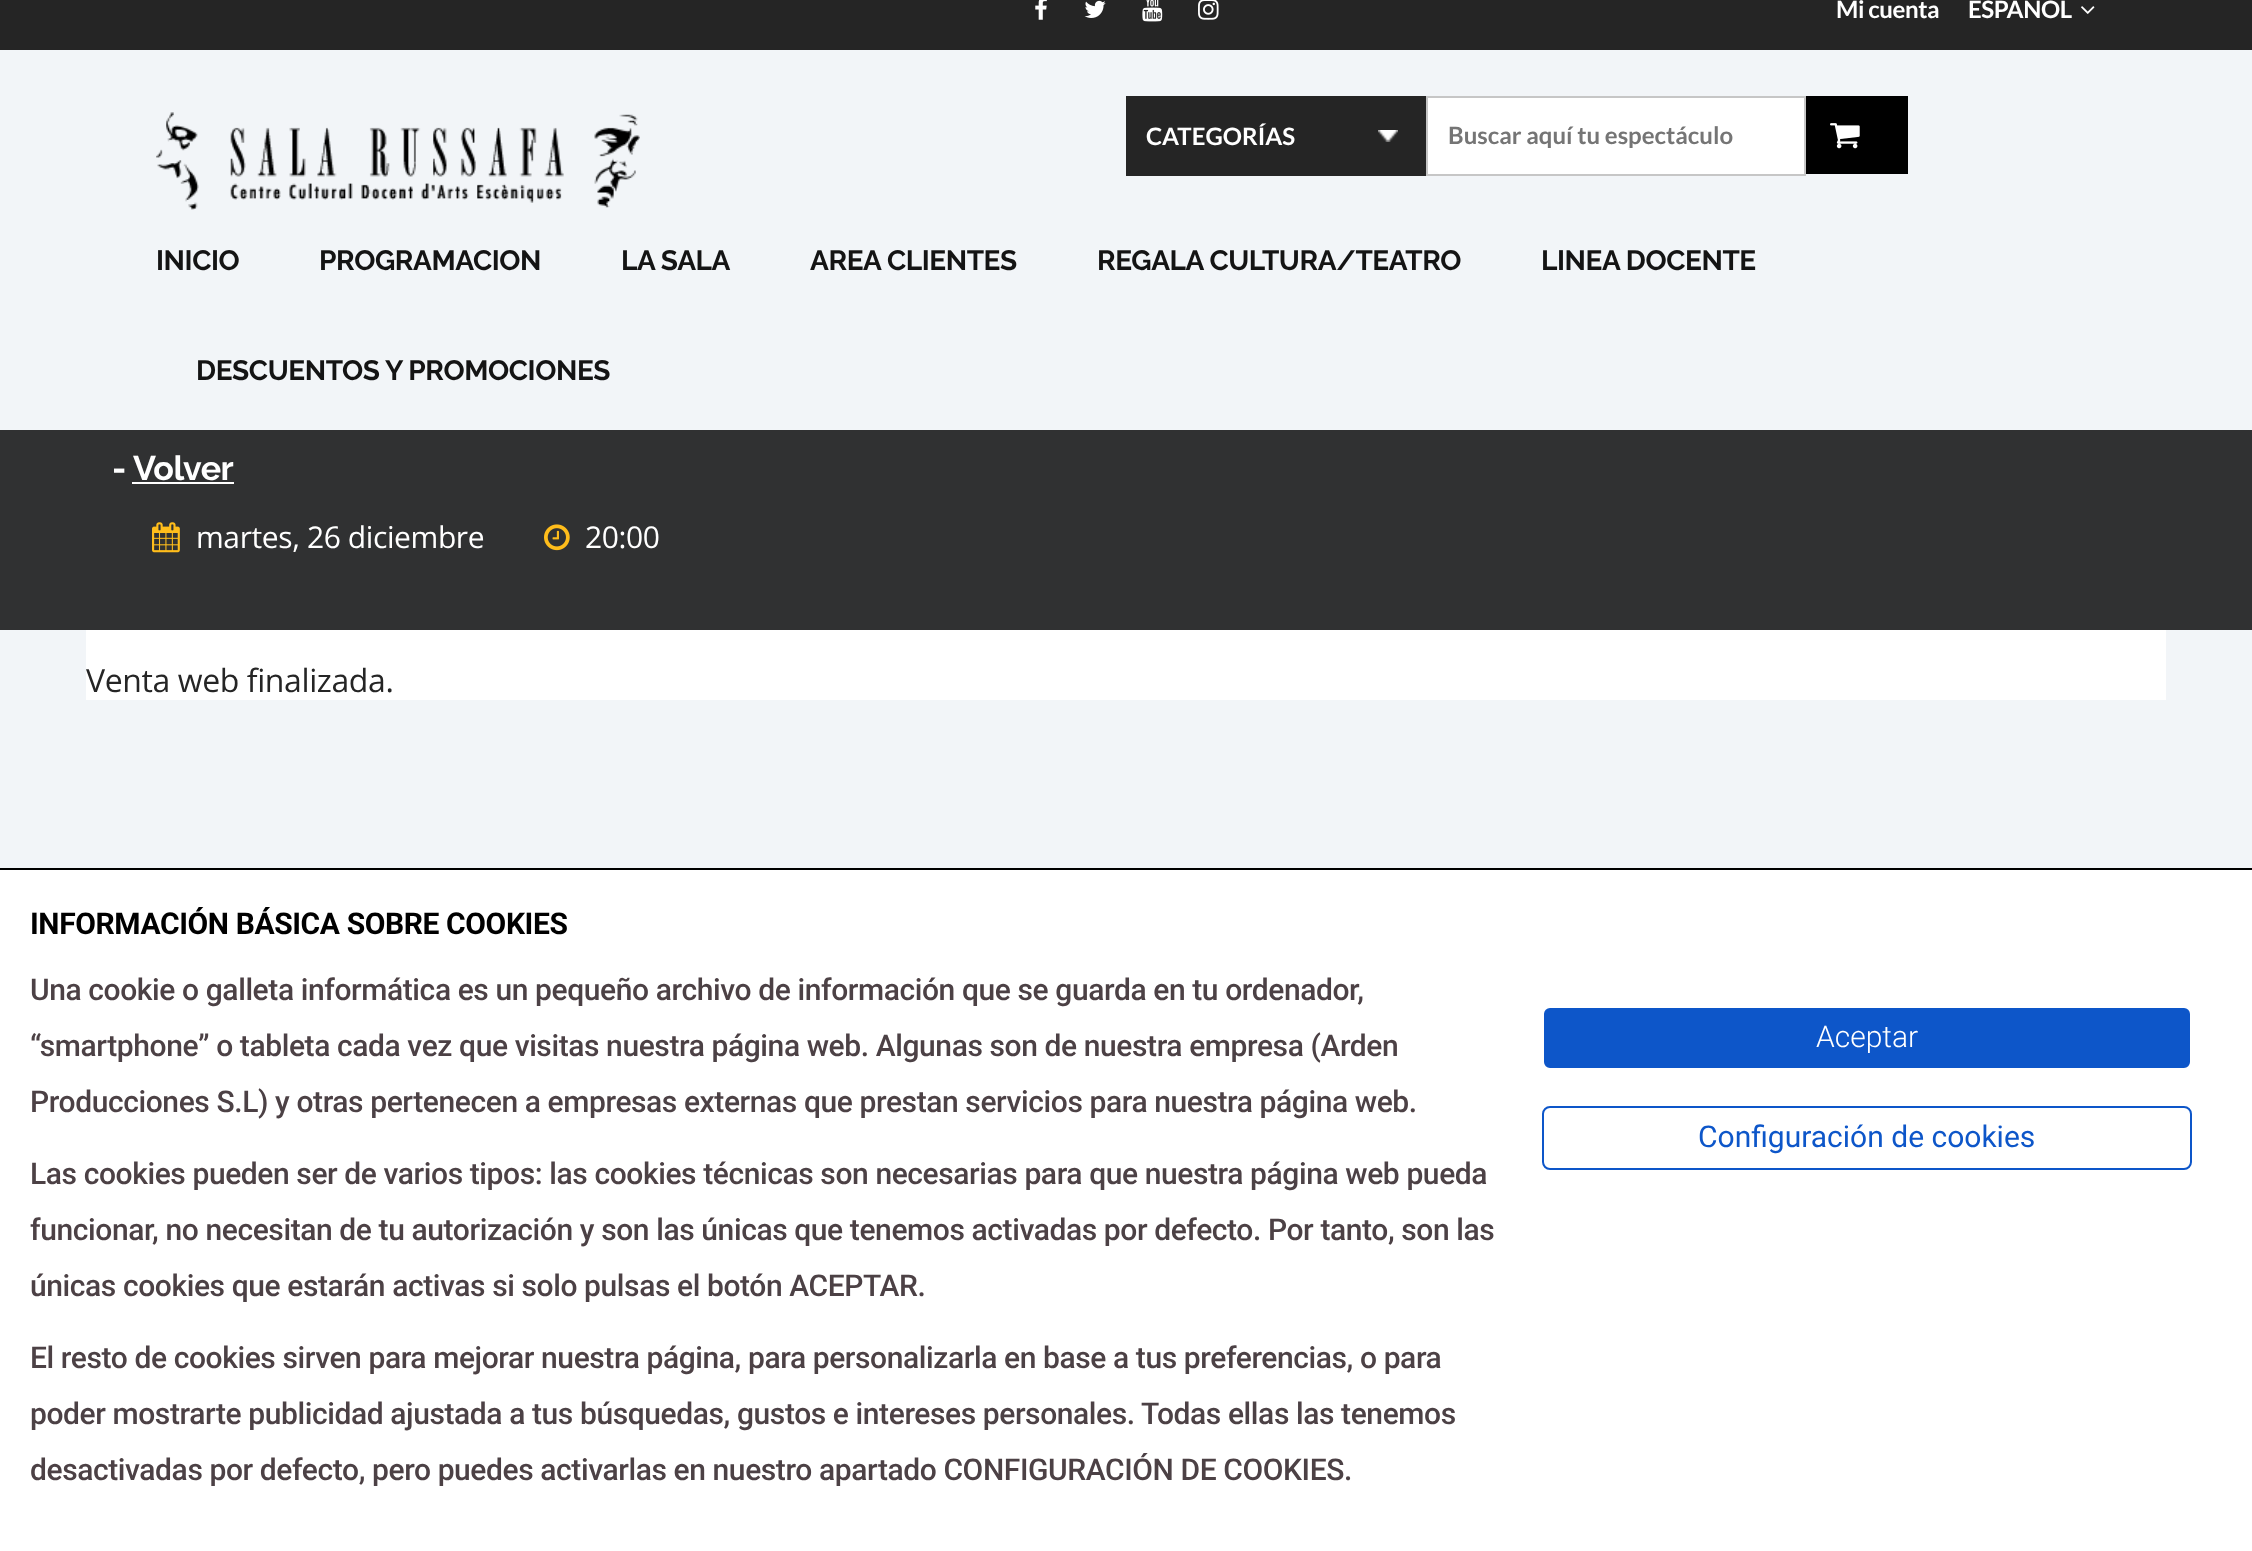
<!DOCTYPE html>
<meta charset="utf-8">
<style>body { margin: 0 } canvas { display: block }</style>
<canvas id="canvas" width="2252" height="1551"></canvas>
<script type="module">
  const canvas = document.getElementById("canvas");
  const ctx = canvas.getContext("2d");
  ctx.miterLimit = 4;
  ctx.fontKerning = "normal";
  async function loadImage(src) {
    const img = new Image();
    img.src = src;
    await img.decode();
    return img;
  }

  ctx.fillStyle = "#f2f5f8";
  ctx.fillRect(0, 0, 2252, 1551);
  ctx.fillStyle = "#252525";
  ctx.fillRect(0, 0, 2252, 50);
  ctx.drawImage(await loadImage("img1.png"), 1035, 0, 12, 20);
  ctx.drawImage(await loadImage("img2.png"), 1084, 0, 22, 18);
  ctx.drawImage(await loadImage("img3.png"), 1142, 0, 21, 22);
  ctx.drawImage(await loadImage("img4.png"), 1198, 0, 21, 20);
  ctx.letterSpacing = "-0.4px";
  ctx.font = "bold 24px Lato";
  ctx.fillStyle = "#ffffff";
  ctx.fillText("Mi cuenta", 1836, 18);
  ctx.fillText("ESPAÑOL", 1968, 18);
  ctx.drawImage(await loadImage("img5.png"), 2081, 6, 14, 8);
  ctx.drawImage(await loadImage("img6.png"), 156, 112, 484, 98);
  ctx.fillStyle = "#252525";
  ctx.fillRect(1126, 96, 300, 80);
  ctx.drawImage(await loadImage("img7.png"), 1378, 130, 20, 12);
  ctx.letterSpacing = "0px";
  ctx.fillStyle = "#ffffff";
  ctx.fillText("CATEGORÍAS", 1146, 145);
  ctx.beginPath();
  ctx.rect(1427, 97, 378, 78);
  ctx.fill();
  ctx.strokeStyle = "#c6c6c6";
  ctx.lineWidth = 2;
  ctx.stroke();
  ctx.fillStyle = "#757575";
  ctx.fillText("Buscar aquí tu espectáculo", 1448, 144);
  ctx.fillStyle = "#000000";
  ctx.fillRect(1806, 96, 102, 78);
  ctx.drawImage(await loadImage("img8.png"), 1830, 123, 30, 26);
  ctx.letterSpacing = "-0.4px";
  ctx.font = "bold 28px Raleway";
  ctx.fillStyle = "#141414";
  ctx.fillText("INICIO", 156, 270);
  ctx.fillText("PROGRAMACION", 319, 270);
  ctx.fillText("LA SALA", 621, 270);
  ctx.fillText("AREA CLIENTES", 810, 270);
  ctx.fillText("REGALA CULTURA/TEATRO", 1097, 270);
  ctx.fillText("LINEA DOCENTE", 1541, 270);
  ctx.fillText("DESCUENTOS Y PROMOCIONES", 196, 380);
  ctx.fillStyle = "#303132";
  ctx.fillRect(0, 430, 2252, 200);
  ctx.font = "bold 34px Raleway";
  ctx.fillStyle = "#ffffff";
  ctx.fillText("-", 112, 480);
  ctx.fillText("Volver", 133, 480);
  ctx.fillRect(132, 482, 102, 2);
  ctx.drawImage(await loadImage("img9.png"), 152, 522, 28, 31);
  ctx.font = "30px Open Sans";
  ctx.fillText("martes, 26 diciembre", 196, 548);
  ctx.drawImage(await loadImage("img10.png"), 544, 524, 26, 27);
  ctx.fillText("20:00", 585, 548);
  ctx.fillRect(86, 630, 2080, 70);
  ctx.font = "32px Open Sans";
  ctx.fillStyle = "#252525";
  ctx.fillText("Venta web finalizada.", 86, 692);
  ctx.fillStyle = "#000000";
  ctx.fillRect(0, 868, 2252, 2);
  ctx.fillStyle = "#ffffff";
  ctx.fillRect(0, 870, 2252, 681);
  ctx.font = "bold 30px Roboto";
  ctx.fillStyle = "#000000";
  ctx.fillText("INFORMACIÓN BÁSICA SOBRE COOKIES", 30, 934);
  ctx.font = "500 30px Roboto";
  ctx.fillStyle = "#4c4145";
  ctx.fillText("Una cookie o galleta informática es un pequeño archivo de información que se guarda en tu ordenador,", 30, 1000);
  ctx.fillText("“smartphone” o tableta cada vez que visitas nuestra página web. Algunas son de nuestra empresa (Arden", 30, 1056);
  ctx.fillText("Producciones S.L) y otras pertenecen a empresas externas que prestan servicios para nuestra página web.", 30, 1112);
  ctx.fillText("Las cookies pueden ser de varios tipos: las cookies técnicas son necesarias para que nuestra página web pueda", 30, 1184);
  ctx.fillText("funcionar, no necesitan de tu autorización y son las únicas que tenemos activadas por defecto. Por tanto, son las", 30, 1240);
  ctx.fillText("únicas cookies que estarán activas si solo pulsas el botón ACEPTAR.", 30, 1296);
  ctx.fillText("El resto de cookies sirven para mejorar nuestra página, para personalizarla en base a tus preferencias, o para", 30, 1368);
  ctx.fillText("poder mostrarte publicidad ajustada a tus búsquedas, gustos e intereses personales. Todas ellas las tenemos", 30, 1424);
  ctx.fillText("desactivadas por defecto, pero puedes activarlas en nuestro apartado CONFIGURACIÓN DE COOKIES.", 30, 1480);
  ctx.fillStyle = "#0d56c9";
  ctx.beginPath();
  ctx.roundRect(1543, 1007, 648, 62, 7);
  ctx.fill();
  ctx.strokeStyle = "#ffffff";
  ctx.stroke();
  ctx.letterSpacing = "0px";
  ctx.font = "300 30px Roboto";
  ctx.fillStyle = "#ffffff";
  ctx.fillText("Aceptar", 1816, 1047);
  ctx.beginPath();
  ctx.roundRect(1543, 1107, 648, 62, 7);
  ctx.strokeStyle = "#0d56c9";
  ctx.stroke();
  ctx.font = "30px Roboto";
  ctx.fillStyle = "#0d56c9";
  ctx.fillText("Configuración de cookies", 1698, 1147);
</script>
